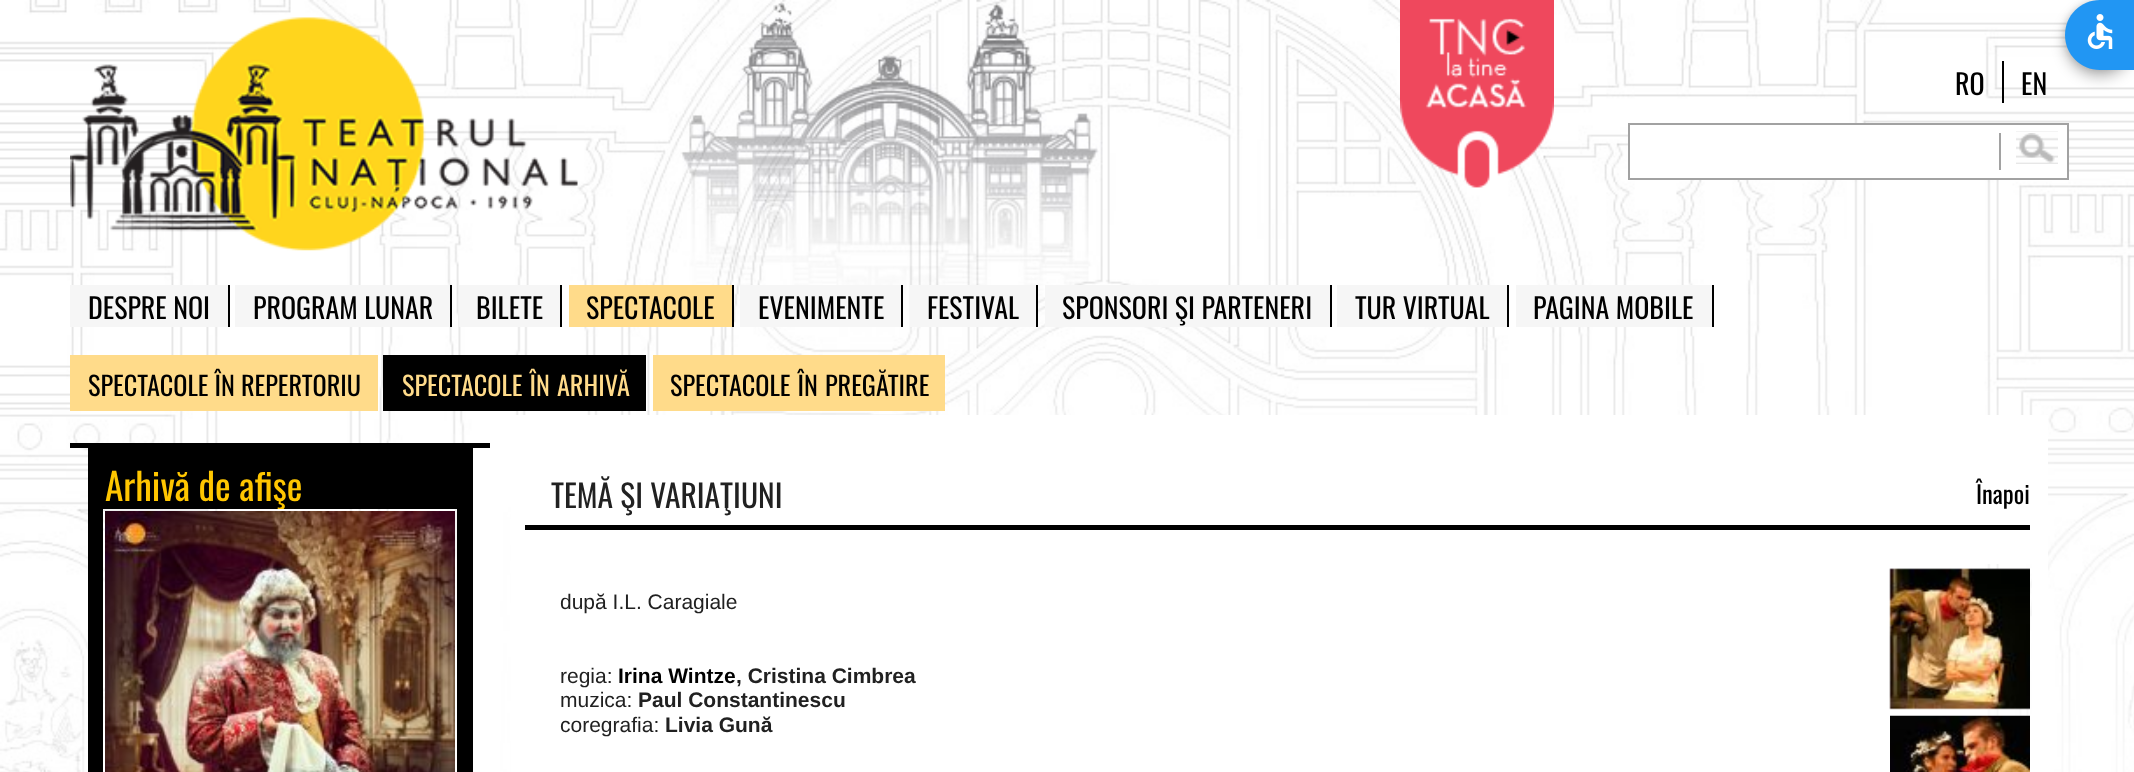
<!DOCTYPE html>
<meta charset="utf-8">
<style>body { margin: 0 } canvas { display: block }</style>
<canvas id="canvas" width="2134" height="772"></canvas>
<script type="module">
  const canvas = document.getElementById("canvas");
  const ctx = canvas.getContext("2d");
  ctx.miterLimit = 4;
  ctx.fontKerning = "normal";
  async function loadImage(src) {
    const img = new Image();
    img.src = src;
    await img.decode();
    return img;
  }

  ctx.fillStyle = "#ffffff";
  ctx.fillRect(0, 0, 2134, 772);
  ctx.drawImage(await loadImage("img1.png"), 0, 0, 2134, 772);
  ctx.fillStyle = "rgba(0, 0, 0, 0.28)";
  ctx.filter = "blur(7px)";
  ctx.beginPath();
  ctx.roundRect(2065, 7, 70, 70, 35);
  ctx.fill();
  ctx.filter = "none";
  ctx.fillStyle = "rgba(0, 0, 0, 0.14)";
  ctx.filter = "blur(3.5px)";
  ctx.beginPath();
  ctx.roundRect(2065, 0, 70, 70, 35);
  ctx.fill();
  ctx.filter = "none";
  ctx.fillStyle = "#2196f3";
  ctx.beginPath();
  ctx.moveTo(2100, 0);
  ctx.lineTo(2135, 0);
  ctx.lineTo(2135, 70);
  ctx.lineTo(2100, 70);
  ctx.bezierCurveTo(2080.5, 70, 2065, 54.5, 2065, 35);
  ctx.bezierCurveTo(2065, 15.5, 2080.5, 0, 2100, 0);
  ctx.closePath();
  ctx.fill();
  ctx.drawImage(await loadImage("img2.png"), 2087, 14, 26, 35);
  ctx.drawImage(await loadImage("img3.png"), 70, 17, 508, 234);
  ctx.drawImage(await loadImage("img4.png"), 1400, 0, 154, 188);
  ctx.font = "28px Oswald";
  ctx.fillStyle = "#000000";
  ctx.fillText("RO", 1955, 95);
  ctx.fillRect(2002, 61, 2, 42);
  ctx.fillText("EN", 2021, 95);
  ctx.fillStyle = "#ffffff";
  ctx.beginPath();
  ctx.rect(1629, 124, 439, 55);
  ctx.fill();
  ctx.strokeStyle = "#a2a2a2";
  ctx.lineWidth = 2;
  ctx.stroke();
  ctx.fillStyle = "#a2a2a2";
  ctx.fillRect(1999, 133, 2, 37);
  ctx.drawImage(await loadImage("img5.png"), 2016, 131, 42, 33);
  ctx.fillStyle = "#f6f6f6";
  ctx.fillRect(70, 285, 158, 42);
  ctx.fillStyle = "#000000";
  ctx.fillText("DESPRE NOI", 88, 319);
  ctx.fillRect(228, 285, 2, 42);
  ctx.fillStyle = "#f6f6f6";
  ctx.fillRect(235, 285, 214, 42);
  ctx.fillStyle = "#000000";
  ctx.fillText("PROGRAM LUNAR", 253, 319);
  ctx.fillRect(450, 285, 2, 42);
  ctx.fillStyle = "#f6f6f6";
  ctx.fillRect(459, 285, 101, 42);
  ctx.fillStyle = "#000000";
  ctx.fillText("BILETE", 476, 319);
  ctx.fillRect(560, 285, 2, 42);
  ctx.fillStyle = "#ffdb8a";
  ctx.fillRect(569, 285, 163, 42);
  ctx.fillStyle = "#000000";
  ctx.fillText("SPECTACOLE", 586, 319);
  ctx.fillRect(732, 285, 2, 42);
  ctx.fillStyle = "#f6f6f6";
  ctx.fillRect(740, 285, 161, 42);
  ctx.fillStyle = "#000000";
  ctx.fillText("EVENIMENTE", 758, 319);
  ctx.fillRect(901, 285, 2, 42);
  ctx.fillStyle = "#f6f6f6";
  ctx.fillRect(910, 285, 126, 42);
  ctx.fillStyle = "#000000";
  ctx.fillText("FESTIVAL", 927, 319);
  ctx.fillRect(1036, 285, 2, 42);
  ctx.fillStyle = "#f6f6f6";
  ctx.fillRect(1045, 285, 285, 42);
  ctx.fillStyle = "#000000";
  ctx.fillText("SPONSORI ŞI PARTENERI", 1062, 319);
  ctx.fillRect(1330, 285, 2, 42);
  ctx.fillStyle = "#f6f6f6";
  ctx.fillRect(1337, 285, 170, 42);
  ctx.fillStyle = "#000000";
  ctx.fillText("TUR VIRTUAL", 1355, 319);
  ctx.fillRect(1507, 285, 2, 42);
  ctx.fillStyle = "#f6f6f6";
  ctx.fillRect(1516, 285, 196, 42);
  ctx.fillStyle = "#000000";
  ctx.fillText("PAGINA MOBILE", 1533, 319);
  ctx.fillRect(1712, 285, 2, 42);
  ctx.fillStyle = "#ffdb8a";
  ctx.fillRect(70, 355, 308, 56);
  ctx.font = "26.25px Oswald";
  ctx.fillStyle = "#000000";
  ctx.fillText("SPECTACOLE ÎN REPERTORIU", 88, 396);
  ctx.fillRect(383, 355, 263, 56);
  ctx.wordSpacing = "1px";
  ctx.fillStyle = "#ffdb8a";
  ctx.fillText("SPECTACOLE ÎN ARHIVĂ", 402, 396);
  ctx.fillRect(653, 355, 292, 56);
  ctx.fillStyle = "#000000";
  ctx.fillText("SPECTACOLE ÎN PREGĂTIRE", 670, 396);
  ctx.fillRect(70, 443, 420, 5);
  ctx.fillRect(88, 448, 385, 324);
  ctx.wordSpacing = "0px";
  ctx.font = "37.25px Oswald";
  ctx.fillStyle = "#ffc600";
  ctx.fillText("Arhivă de afişe", 105, 501);
  ctx.drawImage(await loadImage("img6.png"), 103, 509, 354, 263);
  ctx.fillStyle = "#ffffff";
  ctx.fillRect(511, 415, 1537, 357);
  ctx.fillStyle = "#000000";
  ctx.fillRect(525, 525, 1505, 5);
  ctx.font = "31.5px Oswald";
  ctx.fillStyle = "#212121";
  ctx.fillText("TEMĂ ŞI VARIAŢIUNI", 551, 508);
  ctx.font = "24.5px Oswald";
  ctx.fillStyle = "#000000";
  ctx.fillText("Înapoi", 1976, 504);
  ctx.font = "21px Liberation Sans";
  ctx.fillStyle = "#212121";
  ctx.fillText("după I.L. Caragiale", 560, 609);
  ctx.fillText("regia:", 560, 683);
  ctx.font = "bold 21px Liberation Sans";
  ctx.fillStyle = "#000000";
  ctx.fillText("Irina Wintze", 618, 683);
  ctx.fillStyle = "#212121";
  ctx.fillText(", Cristina Cimbrea", 736, 683);
  ctx.font = "21px Liberation Sans";
  ctx.fillText("muzica:", 560, 707);
  ctx.font = "bold 21px Liberation Sans";
  ctx.fillText("Paul Constantinescu", 638, 707);
  ctx.font = "21px Liberation Sans";
  ctx.fillText("coregrafia:", 560, 732);
  ctx.font = "bold 21px Liberation Sans";
  ctx.fillText("Livia Gună", 665, 732);
  ctx.drawImage(await loadImage("img7.png"), 1889, 564, 143, 150);
  ctx.drawImage(await loadImage("img8.png"), 1890, 714, 140, 58);
</script>
